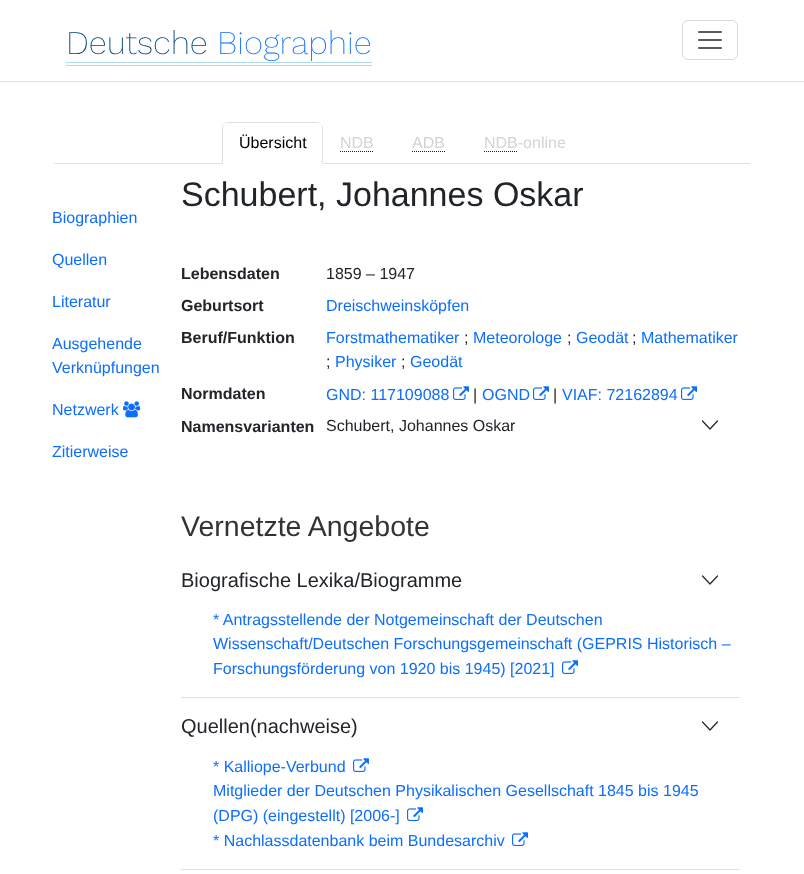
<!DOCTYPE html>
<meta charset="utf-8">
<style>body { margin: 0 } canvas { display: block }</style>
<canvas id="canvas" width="804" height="874"></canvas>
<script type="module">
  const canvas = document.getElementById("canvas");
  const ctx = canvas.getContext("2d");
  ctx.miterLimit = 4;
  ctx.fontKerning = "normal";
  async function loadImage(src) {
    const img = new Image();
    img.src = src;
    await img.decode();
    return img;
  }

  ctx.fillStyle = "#ffffff";
  ctx.fillRect(0, 0, 804, 874);
  ctx.fillStyle = "#dee2e6";
  ctx.fillRect(0, 81, 804, 1);
  ctx.font = "200 33px Work Sans";
  ctx.fillStyle = "#004077";
  ctx.fillText("Deutsche", 66, 54);
  ctx.fillStyle = "#0d6efd";
  ctx.fillText("Biographie", 217, 54);
  ctx.fillStyle = "#add8e6";
  ctx.fillRect(66, 62, 306, 1);
  ctx.fillRect(66, 65, 306, 1);
  ctx.beginPath();
  ctx.roundRect(682.5, 20.5, 55, 39, 5.5);
  ctx.strokeStyle = "#d9d9d9";
  ctx.stroke();
  ctx.drawImage(await loadImage("img1.png"), 698, 31, 24, 18);
  ctx.fillStyle = "#dee2e6";
  ctx.fillRect(54, 163, 696, 1);
  ctx.fillStyle = "#ffffff";
  ctx.beginPath();
  ctx.roundRect(222, 122, 101, 42, [6, 6, 0, 0]);
  ctx.fill();
  ctx.fillStyle = "#dee2e6";
  ctx.beginPath();
  ctx.moveTo(228, 122);
  ctx.bezierCurveTo(226, 122, 225, 123, 224, 124);
  ctx.lineTo(227, 123);
  ctx.lineTo(318, 123);
  ctx.lineTo(321, 124);
  ctx.bezierCurveTo(320, 123, 318, 122, 317, 122);
  ctx.closePath();
  ctx.fill();
  ctx.beginPath();
  ctx.moveTo(323, 164);
  ctx.lineTo(323, 128);
  ctx.bezierCurveTo(323, 126, 322, 125, 321, 124);
  ctx.bezierCurveTo(322, 125, 322, 126, 322, 128);
  ctx.lineTo(322, 163);
  ctx.closePath();
  ctx.fill();
  ctx.fillStyle = "#ffffff";
  ctx.beginPath();
  ctx.moveTo(323, 164);
  ctx.lineTo(322, 163);
  ctx.lineTo(223, 163);
  ctx.lineTo(222, 164);
  ctx.closePath();
  ctx.fill();
  ctx.fillStyle = "#dee2e6";
  ctx.beginPath();
  ctx.moveTo(222, 164);
  ctx.lineTo(223, 163);
  ctx.lineTo(223, 128);
  ctx.bezierCurveTo(223, 126, 224, 125, 224, 124);
  ctx.bezierCurveTo(223, 125, 222, 126, 222, 128);
  ctx.closePath();
  ctx.fill();
  ctx.font = "16px Liberation Sans";
  ctx.fillStyle = "#000000";
  ctx.fillText("Übersicht", 239, 148);
  ctx.fillStyle = "#ced4da";
  ctx.fillText("NDB", 340, 148);
  ctx.beginPath();
  ctx.moveTo(340, 151.5);
  ctx.lineTo(374, 151.5);
  ctx.strokeStyle = "#0000ff";
  ctx.setLineDash([1, 1]);
  ctx.stroke();
  ctx.fillText("ADB", 412, 148);
  ctx.beginPath();
  ctx.moveTo(412, 151.5);
  ctx.lineTo(445, 151.5);
  ctx.stroke();
  ctx.fillText("NDB-online", 484, 148);
  ctx.beginPath();
  ctx.moveTo(484, 151.5);
  ctx.lineTo(517, 151.5);
  ctx.stroke();
  ctx.fillStyle = "#0d6efd";
  ctx.fillText("Biographien", 52, 223);
  ctx.fillText("Quellen", 52, 265);
  ctx.fillText("Literatur", 52, 307);
  ctx.fillText("Ausgehende", 52, 349);
  ctx.fillText("Verknüpfungen", 52, 373);
  ctx.fillText("Netzwerk", 52, 415);
  ctx.drawImage(await loadImage("img2.png"), 123, 401, 18, 17);
  ctx.fillText("Zitierweise", 52, 457);
  ctx.font = "34px Liberation Sans";
  ctx.fillStyle = "#212529";
  ctx.fillText("Schubert, Johannes Oskar", 181, 206);
  ctx.font = "bold 16px Liberation Sans";
  ctx.fillText("Lebensdaten", 181, 279);
  ctx.font = "16px Liberation Sans";
  ctx.fillText("1859 – 1947", 326, 279);
  ctx.font = "bold 16px Liberation Sans";
  ctx.fillText("Geburtsort", 181, 311);
  ctx.font = "16px Liberation Sans";
  ctx.fillStyle = "#0d6efd";
  ctx.fillText("Dreischweinsköpfen", 326, 311);
  ctx.font = "bold 16px Liberation Sans";
  ctx.fillStyle = "#212529";
  ctx.fillText("Beruf/Funktion", 181, 343);
  ctx.font = "16px Liberation Sans";
  ctx.fillStyle = "#0d6efd";
  ctx.fillText("Forstmathematiker", 326, 343);
  ctx.fillStyle = "#212529";
  ctx.fillText(";", 464, 343);
  ctx.fillStyle = "#0d6efd";
  ctx.fillText("Meteorologe", 473, 343);
  ctx.fillStyle = "#212529";
  ctx.fillText(";", 567, 343);
  ctx.fillStyle = "#0d6efd";
  ctx.fillText("Geodät", 576, 343);
  ctx.fillStyle = "#212529";
  ctx.fillText(";", 632, 343);
  ctx.fillStyle = "#0d6efd";
  ctx.fillText("Mathematiker", 641, 343);
  ctx.fillStyle = "#212529";
  ctx.fillText(";", 326, 367);
  ctx.fillStyle = "#0d6efd";
  ctx.fillText("Physiker", 335, 367);
  ctx.fillStyle = "#212529";
  ctx.fillText(";", 401, 367);
  ctx.fillStyle = "#0d6efd";
  ctx.fillText("Geodät", 410, 367);
  ctx.font = "bold 16px Liberation Sans";
  ctx.fillStyle = "#212529";
  ctx.fillText("Normdaten", 181, 399);
  ctx.font = "16px Liberation Sans";
  ctx.fillStyle = "#0d6efd";
  ctx.fillText("GND: 117109088", 326, 400);
  ctx.drawImage(await loadImage("img3.png"), 453, 386, 16, 14);
  ctx.fillStyle = "#212529";
  ctx.fillText("|", 473, 400);
  ctx.fillStyle = "#0d6efd";
  ctx.fillText("OGND", 482, 400);
  ctx.drawImage(await loadImage("img3.png"), 533, 386, 16, 14);
  ctx.fillStyle = "#212529";
  ctx.fillText("|", 553, 400);
  ctx.fillStyle = "#0d6efd";
  ctx.fillText("VIAF: 72162894", 562, 400);
  ctx.drawImage(await loadImage("img3.png"), 681, 386, 16, 14);
  ctx.font = "bold 16px Liberation Sans";
  ctx.fillStyle = "#212529";
  ctx.fillText("Namensvarianten", 181, 432);
  ctx.font = "16px Liberation Sans";
  ctx.fillText("Schubert, Johannes Oskar", 326, 431);
  ctx.beginPath();
  ctx.moveTo(702.5, 421);
  ctx.lineTo(710, 429);
  ctx.lineTo(717.5, 421);
  ctx.strokeStyle = "#212529";
  ctx.lineWidth = 1.2;
  ctx.lineCap = "round";
  ctx.lineJoin = "round";
  ctx.setLineDash([]);
  ctx.stroke();
  ctx.font = "28.5px Liberation Sans";
  ctx.fillStyle = "#333333";
  ctx.fillText("Vernetzte Angebote", 181, 536);
  ctx.fillStyle = "#dee2e6";
  ctx.fillRect(181, 697, 559, 1);
  ctx.font = "20px Liberation Sans";
  ctx.fillStyle = "#212529";
  ctx.fillText("Biografische Lexika/Biogramme", 181, 587);
  ctx.beginPath();
  ctx.moveTo(702.5, 576);
  ctx.lineTo(710, 584);
  ctx.lineTo(717.5, 576);
  ctx.stroke();
  ctx.font = "16px Liberation Sans";
  ctx.fillStyle = "#0d6efd";
  ctx.fillText("* Antragsstellende der Notgemeinschaft der Deutschen", 213, 625);
  ctx.fillText("Wissenschaft/Deutschen Forschungsgemeinschaft (GEPRIS Historisch –", 213, 649);
  ctx.fillText("Forschungsförderung von 1920 bis 1945) [2021]", 213, 674);
  ctx.drawImage(await loadImage("img3.png"), 562, 660, 16, 14);
  ctx.fillStyle = "#dee2e6";
  ctx.fillRect(181, 869, 559, 1);
  ctx.font = "20px Liberation Sans";
  ctx.fillStyle = "#212529";
  ctx.fillText("Quellen(nachweise)", 181, 733);
  ctx.beginPath();
  ctx.moveTo(702.5, 722);
  ctx.lineTo(710, 730);
  ctx.lineTo(717.5, 722);
  ctx.stroke();
  ctx.font = "16px Liberation Sans";
  ctx.fillStyle = "#0d6efd";
  ctx.fillText("* Kalliope-Verbund", 213, 772);
  ctx.drawImage(await loadImage("img3.png"), 353, 758, 16, 14);
  ctx.fillText("Mitglieder der Deutschen Physikalischen Gesellschaft 1845 bis 1945", 213, 796);
  ctx.fillText("(DPG) (eingestellt) [2006-]", 213, 821);
  ctx.drawImage(await loadImage("img3.png"), 407, 807, 16, 14);
  ctx.fillText("* Nachlassdatenbank beim Bundesarchiv", 213, 846);
  ctx.drawImage(await loadImage("img3.png"), 512, 832, 16, 14);
</script>
